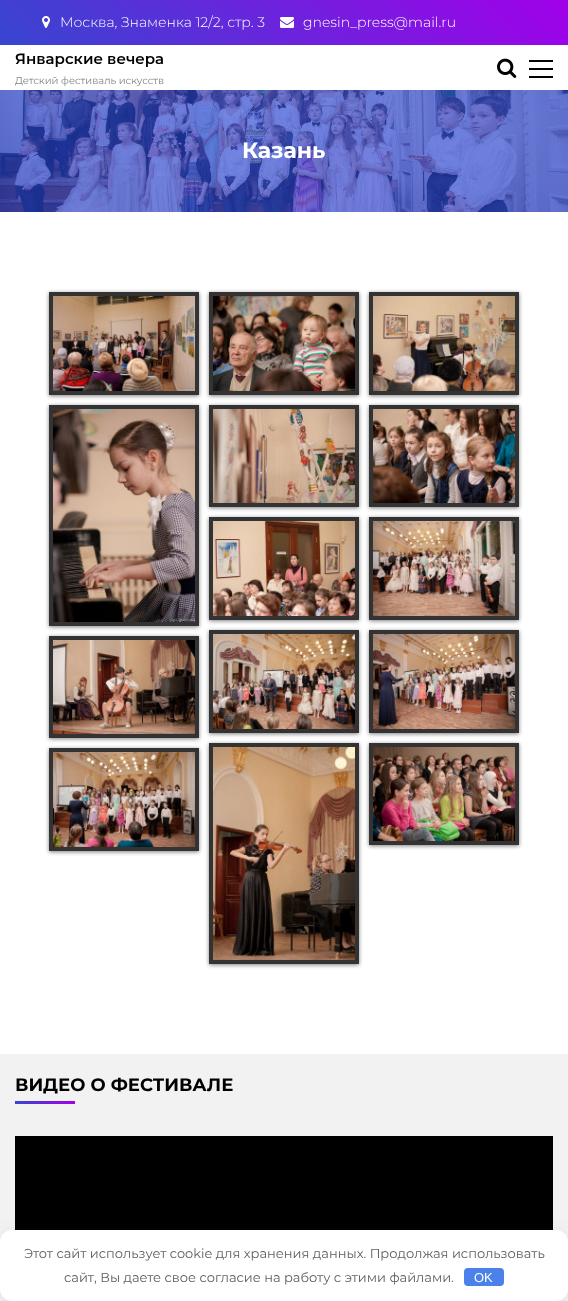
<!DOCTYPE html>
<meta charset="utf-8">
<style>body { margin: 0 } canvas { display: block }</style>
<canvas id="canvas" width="568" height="1301"></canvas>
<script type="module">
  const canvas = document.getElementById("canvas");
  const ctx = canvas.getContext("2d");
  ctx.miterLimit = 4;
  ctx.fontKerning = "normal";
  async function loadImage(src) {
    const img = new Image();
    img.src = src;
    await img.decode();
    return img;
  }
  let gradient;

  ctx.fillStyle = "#ffffff";
  ctx.fillRect(0, 0, 568, 1301);
  gradient = ctx.createLinearGradient(131, 176, 437, -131);
  gradient.addColorStop(0, "#3746d0");
  gradient.addColorStop(1, "#a100e9");
  ctx.fillStyle = gradient;
  ctx.fillRect(0, 0, 568, 45);
  ctx.drawImage(await loadImage("img1.png"), 42, 16, 8, 12);
  ctx.font = "300 14px Montserrat";
  ctx.fillStyle = "#ffffff";
  ctx.fillText("Москва, Знаменка 12/2, стр. 3", 60, 27);
  ctx.drawImage(await loadImage("img2.png"), 280, 17, 14, 11);
  ctx.fillText("gnesin_press@mail.ru", 303, 27);
  ctx.font = "600 15px Montserrat";
  ctx.fillStyle = "#000000";
  ctx.fillText("Январские вечера", 15, 64);
  ctx.font = "10px Montserrat";
  ctx.fillStyle = "#808080";
  ctx.fillText("Детский фестиваль искусств", 15, 84);
  ctx.drawImage(await loadImage("img3.png"), 497, 58, 20, 20);
  ctx.fillStyle = "#000000";
  ctx.fillRect(529, 60, 24, 2);
  ctx.fillRect(529, 68, 24, 2);
  ctx.fillRect(529, 76, 24, 2);
  ctx.drawImage(await loadImage("img4.png"), 0, 90, 568, 122);
  ctx.font = "bold 22px Montserrat";
  ctx.fillStyle = "#ffffff";
  ctx.fillText("Казань", 242, 158);
  ctx.fillStyle = "rgba(0, 0, 0, 0.5)";
  ctx.filter = "blur(2px)";
  ctx.beginPath();
  ctx.rect(49, 293, 150, 103);
  ctx.fill();
  ctx.filter = "none";
  ctx.fillStyle = "#333333";
  ctx.fillRect(49, 292, 150, 103);
  ctx.drawImage(await loadImage("img5.png"), 53, 296, 142, 95);
  ctx.fillStyle = "rgba(0, 0, 0, 0.5)";
  ctx.filter = "blur(2px)";
  ctx.beginPath();
  ctx.rect(209, 293, 150, 103);
  ctx.fill();
  ctx.filter = "none";
  ctx.fillStyle = "#333333";
  ctx.fillRect(209, 292, 150, 103);
  ctx.drawImage(await loadImage("img6.png"), 213, 296, 142, 95);
  ctx.fillStyle = "rgba(0, 0, 0, 0.5)";
  ctx.filter = "blur(2px)";
  ctx.beginPath();
  ctx.rect(369, 293, 150, 103);
  ctx.fill();
  ctx.filter = "none";
  ctx.fillStyle = "#333333";
  ctx.fillRect(369, 292, 150, 103);
  ctx.drawImage(await loadImage("img7.png"), 373, 296, 142, 95);
  ctx.fillStyle = "rgba(0, 0, 0, 0.5)";
  ctx.filter = "blur(2px)";
  ctx.beginPath();
  ctx.rect(49, 406, 150, 221);
  ctx.fill();
  ctx.filter = "none";
  ctx.fillStyle = "#333333";
  ctx.fillRect(49, 405, 150, 221);
  ctx.drawImage(await loadImage("img8.png"), 53, 409, 142, 213);
  ctx.fillStyle = "rgba(0, 0, 0, 0.5)";
  ctx.filter = "blur(2px)";
  ctx.beginPath();
  ctx.rect(209, 406, 150, 102);
  ctx.fill();
  ctx.filter = "none";
  ctx.fillStyle = "#333333";
  ctx.fillRect(209, 405, 150, 102);
  ctx.drawImage(await loadImage("img9.png"), 213, 409, 142, 94);
  ctx.fillStyle = "rgba(0, 0, 0, 0.5)";
  ctx.filter = "blur(2px)";
  ctx.beginPath();
  ctx.rect(369, 406, 150, 102);
  ctx.fill();
  ctx.filter = "none";
  ctx.fillStyle = "#333333";
  ctx.fillRect(369, 405, 150, 102);
  ctx.drawImage(await loadImage("img10.png"), 373, 409, 142, 94);
  ctx.fillStyle = "rgba(0, 0, 0, 0.5)";
  ctx.filter = "blur(2px)";
  ctx.beginPath();
  ctx.rect(209, 518, 150, 103);
  ctx.fill();
  ctx.filter = "none";
  ctx.fillStyle = "#333333";
  ctx.fillRect(209, 517, 150, 103);
  ctx.drawImage(await loadImage("img11.png"), 213, 521, 142, 95);
  ctx.fillStyle = "rgba(0, 0, 0, 0.5)";
  ctx.filter = "blur(2px)";
  ctx.beginPath();
  ctx.rect(369, 518, 150, 103);
  ctx.fill();
  ctx.filter = "none";
  ctx.fillStyle = "#333333";
  ctx.fillRect(369, 517, 150, 103);
  ctx.drawImage(await loadImage("img12.png"), 373, 521, 142, 95);
  ctx.fillStyle = "rgba(0, 0, 0, 0.5)";
  ctx.filter = "blur(2px)";
  ctx.beginPath();
  ctx.rect(49, 637, 150, 102);
  ctx.fill();
  ctx.filter = "none";
  ctx.fillStyle = "#333333";
  ctx.fillRect(49, 636, 150, 102);
  ctx.drawImage(await loadImage("img13.png"), 53, 640, 142, 94);
  ctx.fillStyle = "rgba(0, 0, 0, 0.5)";
  ctx.filter = "blur(2px)";
  ctx.beginPath();
  ctx.rect(209, 631, 150, 103);
  ctx.fill();
  ctx.filter = "none";
  ctx.fillStyle = "#333333";
  ctx.fillRect(209, 630, 150, 103);
  ctx.drawImage(await loadImage("img14.png"), 213, 634, 142, 95);
  ctx.fillStyle = "rgba(0, 0, 0, 0.5)";
  ctx.filter = "blur(2px)";
  ctx.beginPath();
  ctx.rect(369, 631, 150, 103);
  ctx.fill();
  ctx.filter = "none";
  ctx.fillStyle = "#333333";
  ctx.fillRect(369, 630, 150, 103);
  ctx.drawImage(await loadImage("img15.png"), 373, 634, 142, 95);
  ctx.fillStyle = "rgba(0, 0, 0, 0.5)";
  ctx.filter = "blur(2px)";
  ctx.beginPath();
  ctx.rect(49, 749, 150, 103);
  ctx.fill();
  ctx.filter = "none";
  ctx.fillStyle = "#333333";
  ctx.fillRect(49, 748, 150, 103);
  ctx.drawImage(await loadImage("img16.png"), 53, 752, 142, 95);
  ctx.fillStyle = "rgba(0, 0, 0, 0.5)";
  ctx.filter = "blur(2px)";
  ctx.beginPath();
  ctx.rect(209, 744, 150, 221);
  ctx.fill();
  ctx.filter = "none";
  ctx.fillStyle = "#333333";
  ctx.fillRect(209, 743, 150, 221);
  ctx.drawImage(await loadImage("img17.png"), 213, 747, 142, 213);
  ctx.fillStyle = "rgba(0, 0, 0, 0.5)";
  ctx.filter = "blur(2px)";
  ctx.beginPath();
  ctx.rect(369, 744, 150, 102);
  ctx.fill();
  ctx.filter = "none";
  ctx.fillStyle = "#333333";
  ctx.fillRect(369, 743, 150, 102);
  ctx.drawImage(await loadImage("img18.png"), 373, 747, 142, 94);
  ctx.fillStyle = "#f2f2f2";
  ctx.fillRect(0, 1054, 568, 247);
  ctx.font = "bold 18px Montserrat";
  ctx.fillStyle = "#000000";
  ctx.fillText("ВИДЕО О ФЕСТИВАЛЕ", 15, 1091);
  gradient = ctx.createLinearGradient(29, 1118, 61, 1087);
  gradient.addColorStop(0, "#3746d0");
  gradient.addColorStop(1, "#a100e9");
  ctx.fillStyle = gradient;
  ctx.fillRect(15, 1101, 60, 3);
  ctx.fillStyle = "#000000";
  ctx.fillRect(15, 1136, 538, 94);
  ctx.fillStyle = "rgba(41, 44, 56, 0.2)";
  ctx.filter = "blur(10px)";
  ctx.beginPath();
  ctx.roundRect(5, 1238, 558, 61, 7);
  ctx.fill();
  ctx.filter = "none";
  ctx.fillStyle = "#ffffff";
  ctx.beginPath();
  ctx.roundRect(0, 1230, 568, 71, 12);
  ctx.fill();
  ctx.font = "13px Montserrat";
  ctx.fillStyle = "#5f5f5f";
  ctx.fillText("Этот сайт использует cookie для хранения данных. Продолжая использовать", 24, 1258);
  ctx.fillText("сайт, Вы даете свое согласие на работу с этими файлами.", 64, 1282);
  ctx.fillStyle = "#4b81e8";
  ctx.beginPath();
  ctx.roundRect(464, 1268, 40, 18, 4);
  ctx.fill();
  ctx.font = "13px Liberation Sans";
  ctx.fillStyle = "#ffffff";
  ctx.fillText("OK", 474, 1282);
</script>
